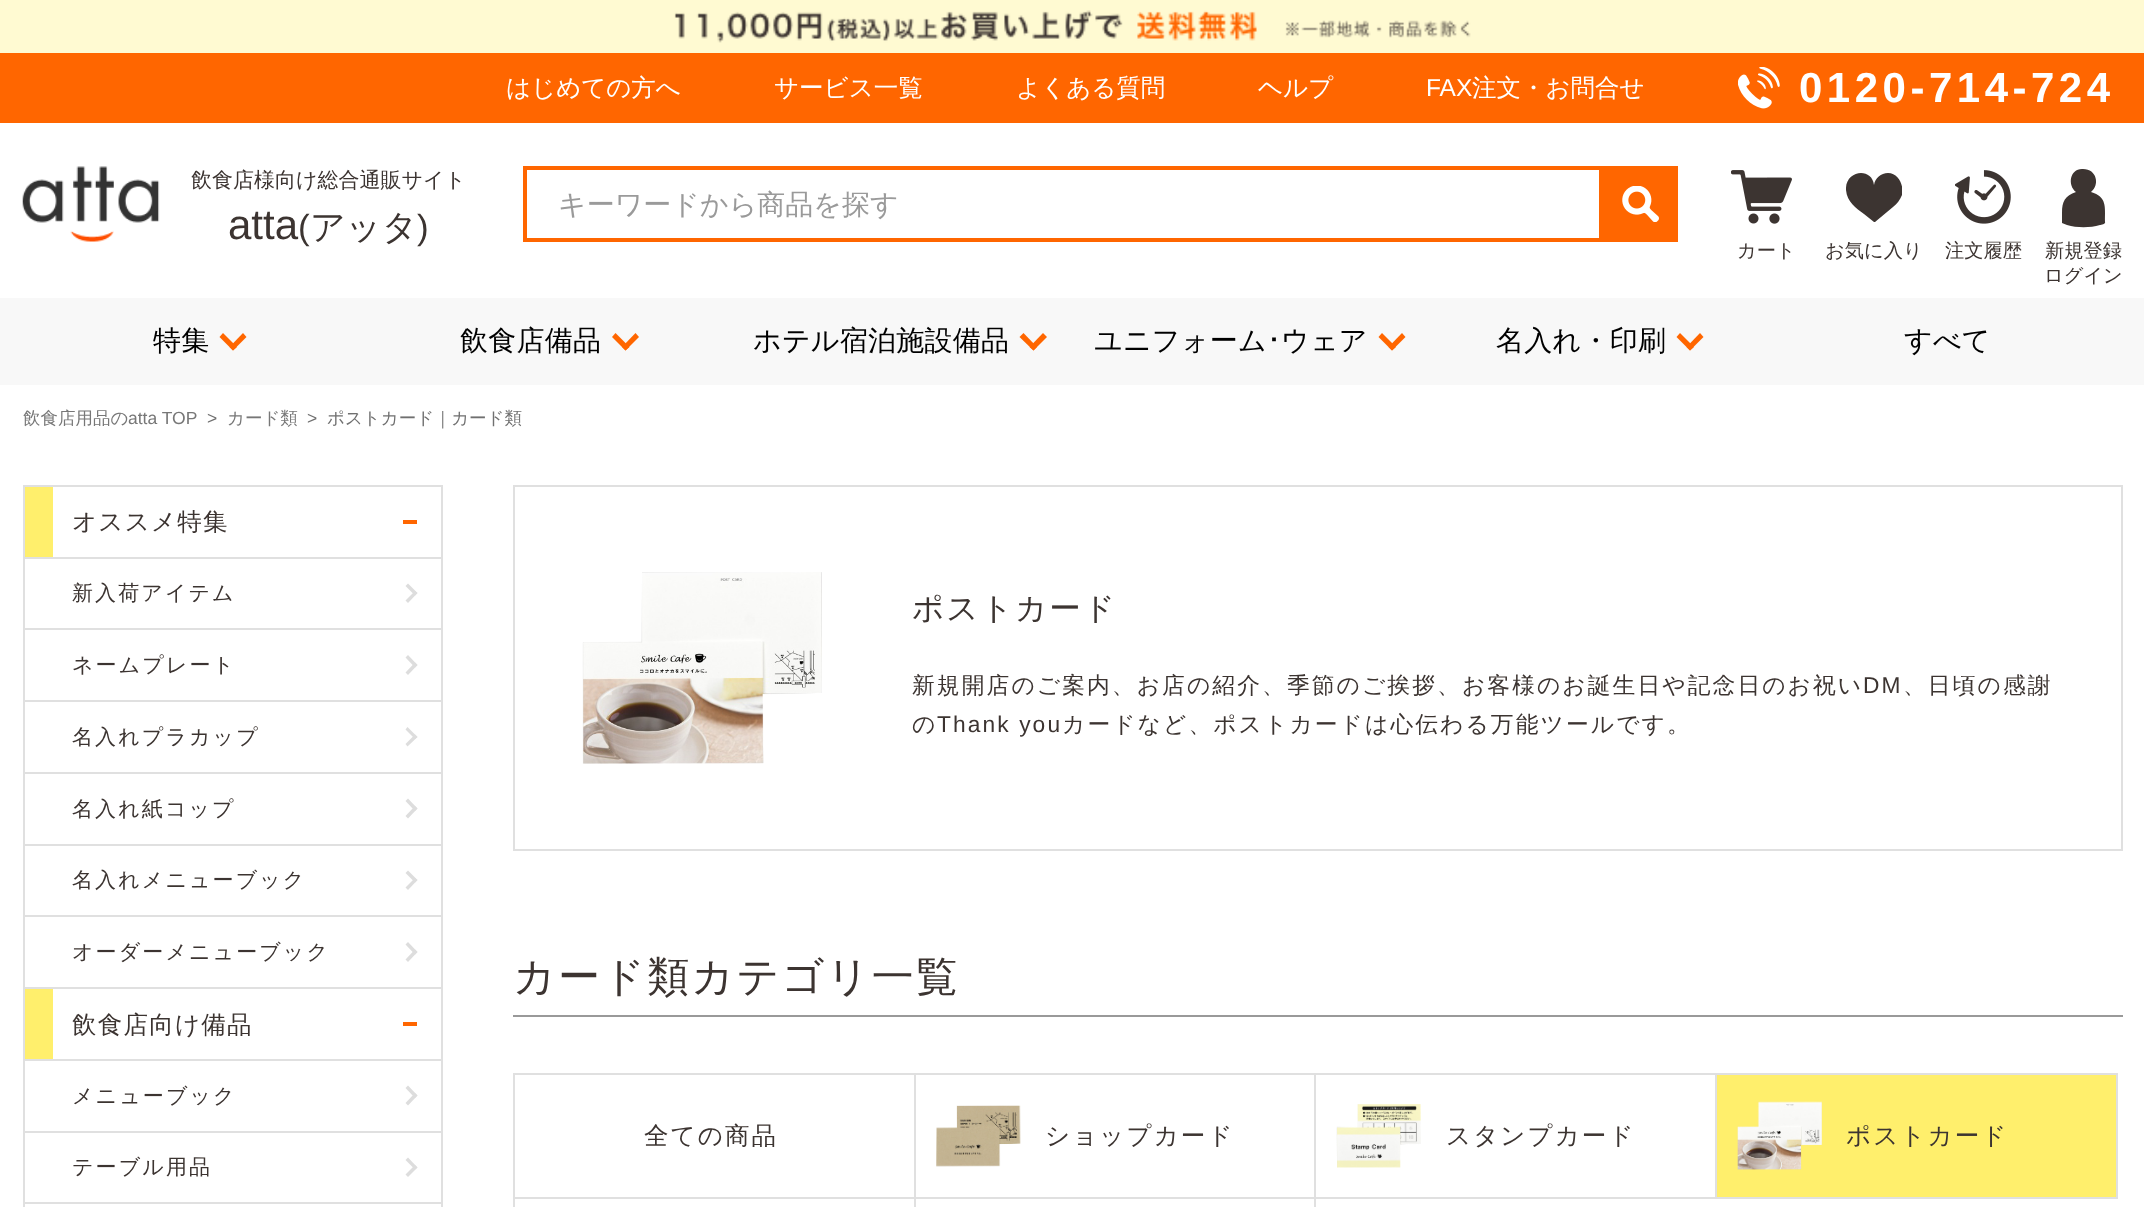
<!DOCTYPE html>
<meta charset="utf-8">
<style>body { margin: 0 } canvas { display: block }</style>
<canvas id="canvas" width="2144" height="1207"></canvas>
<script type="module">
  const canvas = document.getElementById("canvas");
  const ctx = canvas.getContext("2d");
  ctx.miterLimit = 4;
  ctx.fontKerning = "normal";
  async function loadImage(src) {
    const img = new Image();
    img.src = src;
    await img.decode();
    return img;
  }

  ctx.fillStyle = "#ffffff";
  ctx.fillRect(0, 0, 2144, 1207);
  ctx.fillStyle = "#fffad2";
  ctx.fillRect(0, 0, 2144, 53);
  ctx.drawImage(await loadImage("img1.png"), 674, 10, 797, 33);
  ctx.fillStyle = "#ff6600";
  ctx.fillRect(0, 53, 2144, 70);
  ctx.font = "500 24.5px WenQuanYi Zen Hei";
  ctx.fillStyle = "#ffffff";
  ctx.fillText("はじめての方へ", 506, 96);
  ctx.fillText("サービス一覧", 774, 96);
  ctx.fillText("よくある質問", 1016, 96);
  ctx.fillText("ヘルプ", 1258, 96);
  ctx.font = "24.5px Liberation Sans";
  ctx.fillText("FAX", 1426, 96);
  ctx.font = "500 24.5px WenQuanYi Zen Hei";
  ctx.fillText("注文・お問合せ", 1472, 96);
  ctx.drawImage(await loadImage("img2.png"), 1738, 67, 42, 42);
  ctx.letterSpacing = "4.5px";
  ctx.font = "bold 42px Liberation Sans";
  ctx.fillText("0120-714-724", 1799, 102);
  ctx.drawImage(await loadImage("img3.png"), 22, 166, 138, 76);
  ctx.letterSpacing = "0px";
  ctx.font = "500 21px WenQuanYi Zen Hei";
  ctx.fillStyle = "#3c3431";
  ctx.fillText("飲食店様向け総合通販サイト", 191, 187);
  ctx.font = "42px Liberation Sans";
  ctx.fillText("atta", 228, 239);
  ctx.font = "35px Liberation Sans";
  ctx.fillText("(", 298, 239);
  ctx.font = "500 35px WenQuanYi Zen Hei";
  ctx.fillText("アッタ", 310, 239);
  ctx.font = "35px Liberation Sans";
  ctx.fillText(")", 417, 239);
  ctx.strokeStyle = "#ff6600";
  ctx.lineWidth = 4;
  ctx.strokeRect(525, 168, 1076, 72);
  ctx.font = "500 28px WenQuanYi Zen Hei";
  ctx.fillStyle = "#9a9a9a";
  ctx.fillText("キーワードから商品を探す", 558, 214);
  ctx.fillStyle = "#ff6600";
  ctx.fillRect(1603, 166, 75, 76);
  ctx.drawImage(await loadImage("img4.png"), 1622, 186, 37, 36);
  ctx.drawImage(await loadImage("img5.png"), 1731, 170, 61, 54);
  ctx.font = "500 19.25px WenQuanYi Zen Hei";
  ctx.fillStyle = "#3c3431";
  ctx.fillText("カート", 1737, 257);
  ctx.save();
  ctx.beginPath();
  ctx.rect(1846, 173, 56, 49);
  ctx.clip();
  ctx.beginPath();
  ctx.moveTo(1888, 173);
  ctx.bezierCurveTo(1881, 173, 1875, 178, 1874, 185);
  ctx.bezierCurveTo(1872, 167, 1845, 170, 1846, 190);
  ctx.bezierCurveTo(1847, 202, 1856, 208, 1864, 214);
  ctx.lineTo(1874, 222);
  ctx.lineTo(1875, 222);
  ctx.lineTo(1893, 207);
  ctx.bezierCurveTo(1897, 204, 1900, 200, 1902, 195);
  ctx.bezierCurveTo(1904, 186, 1899, 173, 1888, 173);
  ctx.closePath();
  ctx.fill();
  ctx.restore();
  ctx.fillText("お気に入り", 1825, 257);
  ctx.drawImage(await loadImage("img6.png"), 1955, 170, 56, 54);
  ctx.fillText("注文履歴", 1945, 257);
  ctx.beginPath();
  ctx.moveTo(2105, 222);
  ctx.bezierCurveTo(2105, 206, 2107, 197, 2091, 192);
  ctx.bezierCurveTo(2100, 185, 2097, 169, 2083, 169);
  ctx.bezierCurveTo(2070, 168, 2067, 185, 2076, 192);
  ctx.bezierCurveTo(2065, 196, 2062, 201, 2062, 213);
  ctx.lineTo(2062, 223);
  ctx.lineTo(2067, 225);
  ctx.bezierCurveTo(2077, 228, 2090, 228, 2100, 225);
  ctx.bezierCurveTo(2101, 225, 2106, 224, 2105, 222);
  ctx.closePath();
  ctx.fill();
  ctx.fillText("新規登録", 2045, 257);
  ctx.fillText("ログイン", 2044, 282);
  ctx.fillStyle = "#f8f8f8";
  ctx.fillRect(0, 298, 2144, 87);
  ctx.letterSpacing = "0.25px";
  ctx.font = "500 28px WenQuanYi Zen Hei";
  ctx.fillStyle = "#000000";
  ctx.fillText("特集", 153, 350);
  ctx.fillStyle = "#ff6600";
  ctx.beginPath();
  ctx.moveTo(246.5, 337);
  ctx.lineTo(233, 350.5);
  ctx.lineTo(229.5, 347);
  ctx.lineTo(243, 333);
  ctx.closePath();
  ctx.fill();
  ctx.beginPath();
  ctx.moveTo(237, 347);
  ctx.lineTo(233, 350.5);
  ctx.lineTo(219.5, 337);
  ctx.lineTo(223, 333);
  ctx.closePath();
  ctx.fill();
  ctx.fillStyle = "#000000";
  ctx.fillText("飲食店備品", 460, 350);
  ctx.fillStyle = "#ff6600";
  ctx.beginPath();
  ctx.moveTo(639, 337);
  ctx.lineTo(625.5, 350.5);
  ctx.lineTo(622, 347);
  ctx.lineTo(635.5, 333);
  ctx.closePath();
  ctx.fill();
  ctx.beginPath();
  ctx.moveTo(629.5, 347);
  ctx.lineTo(625.5, 350.5);
  ctx.lineTo(612, 337);
  ctx.lineTo(615.5, 333);
  ctx.closePath();
  ctx.fill();
  ctx.fillStyle = "#000000";
  ctx.fillText("ホテル宿泊施設備品", 753, 350);
  ctx.fillStyle = "#ff6600";
  ctx.beginPath();
  ctx.moveTo(1047, 337);
  ctx.lineTo(1033.5, 350.5);
  ctx.lineTo(1029.5, 347);
  ctx.lineTo(1043, 333);
  ctx.closePath();
  ctx.fill();
  ctx.beginPath();
  ctx.moveTo(1037, 347);
  ctx.lineTo(1033.5, 350.5);
  ctx.lineTo(1019.5, 337);
  ctx.lineTo(1023.5, 333);
  ctx.closePath();
  ctx.fill();
  ctx.fillStyle = "#000000";
  ctx.fillText("ユニフォーム", 1094, 350);
  ctx.font = "28px IPAPGothic";
  ctx.fillText("･", 1267, 350);
  ctx.font = "500 28px WenQuanYi Zen Hei";
  ctx.fillText("ウェア", 1281, 350);
  ctx.fillStyle = "#ff6600";
  ctx.beginPath();
  ctx.moveTo(1405.5, 337);
  ctx.lineTo(1392, 350.5);
  ctx.lineTo(1388.5, 347);
  ctx.lineTo(1402, 333);
  ctx.closePath();
  ctx.fill();
  ctx.beginPath();
  ctx.moveTo(1396, 347);
  ctx.lineTo(1392, 350.5);
  ctx.lineTo(1378.5, 337);
  ctx.lineTo(1382, 333);
  ctx.closePath();
  ctx.fill();
  ctx.fillStyle = "#000000";
  ctx.fillText("名入れ・印刷", 1496, 350);
  ctx.fillStyle = "#ff6600";
  ctx.beginPath();
  ctx.moveTo(1703.5, 337);
  ctx.lineTo(1690, 350.5);
  ctx.lineTo(1686.5, 347);
  ctx.lineTo(1700, 333);
  ctx.closePath();
  ctx.fill();
  ctx.beginPath();
  ctx.moveTo(1694, 347);
  ctx.lineTo(1690, 350.5);
  ctx.lineTo(1676.5, 337);
  ctx.lineTo(1680, 333);
  ctx.closePath();
  ctx.fill();
  ctx.fillStyle = "#000000";
  ctx.fillText("すべて", 1904, 350);
  ctx.letterSpacing = "0px";
  ctx.font = "500 17.5px WenQuanYi Zen Hei";
  ctx.fillStyle = "#777777";
  ctx.fillText("飲食店用品の", 23, 424);
  ctx.font = "17.5px Liberation Sans";
  ctx.fillText("atta TOP", 128, 424);
  ctx.fillStyle = "#707070";
  ctx.fillText(">", 207, 424);
  ctx.font = "500 17.5px WenQuanYi Zen Hei";
  ctx.fillStyle = "#777777";
  ctx.fillText("カード類", 227, 424);
  ctx.font = "17.5px Liberation Sans";
  ctx.fillStyle = "#707070";
  ctx.fillText(">", 307, 424);
  ctx.font = "500 17.5px WenQuanYi Zen Hei";
  ctx.fillText("ポストカード｜カード類", 327, 424);
  ctx.fillStyle = "#e0e0e0";
  ctx.fillRect(23, 485, 420, 2);
  ctx.fillRect(441, 485, 2, 722);
  ctx.fillRect(23, 485, 2, 722);
  ctx.fillStyle = "#ffef6c";
  ctx.fillRect(25, 487, 28, 70);
  ctx.fillStyle = "#e0e0e0";
  ctx.fillRect(25, 557, 416, 2);
  ctx.letterSpacing = "1.25px";
  ctx.font = "500 24.5px WenQuanYi Zen Hei";
  ctx.fillStyle = "#3c3431";
  ctx.fillText("オススメ特集", 72, 530);
  ctx.fillStyle = "#ff6600";
  ctx.fillRect(403, 520, 14, 4);
  ctx.fillStyle = "#e0e0e0";
  ctx.fillRect(25, 628, 416, 2);
  ctx.letterSpacing = "2.1px";
  ctx.font = "500 21px WenQuanYi Zen Hei";
  ctx.fillStyle = "#3c3431";
  ctx.fillText("新入荷アイテム", 72, 600);
  ctx.fillStyle = "#dddddd";
  ctx.beginPath();
  ctx.moveTo(408, 583.5);
  ctx.lineTo(417.5, 593);
  ctx.lineTo(415, 595.5);
  ctx.lineTo(405.5, 586);
  ctx.closePath();
  ctx.fill();
  ctx.beginPath();
  ctx.moveTo(415, 591);
  ctx.lineTo(417.5, 593);
  ctx.lineTo(408, 603);
  ctx.lineTo(405.5, 600.5);
  ctx.closePath();
  ctx.fill();
  ctx.fillStyle = "#e0e0e0";
  ctx.fillRect(25, 700, 416, 2);
  ctx.fillStyle = "#3c3431";
  ctx.fillText("ネームプレート", 72, 672);
  ctx.fillStyle = "#dddddd";
  ctx.beginPath();
  ctx.moveTo(408, 655);
  ctx.lineTo(417.5, 665);
  ctx.lineTo(415, 667.5);
  ctx.lineTo(405.5, 657.5);
  ctx.closePath();
  ctx.fill();
  ctx.beginPath();
  ctx.moveTo(415, 662.5);
  ctx.lineTo(417.5, 665);
  ctx.lineTo(408, 675);
  ctx.lineTo(405.5, 672.5);
  ctx.closePath();
  ctx.fill();
  ctx.fillStyle = "#e0e0e0";
  ctx.fillRect(25, 772, 416, 2);
  ctx.fillStyle = "#3c3431";
  ctx.fillText("名入れプラカップ", 72, 744);
  ctx.fillStyle = "#dddddd";
  ctx.beginPath();
  ctx.moveTo(407.5, 727);
  ctx.lineTo(417.5, 737);
  ctx.lineTo(415, 739);
  ctx.lineTo(405.5, 729.5);
  ctx.closePath();
  ctx.fill();
  ctx.beginPath();
  ctx.moveTo(415, 734.5);
  ctx.lineTo(417.5, 737);
  ctx.lineTo(407.5, 746.5);
  ctx.lineTo(405.5, 744);
  ctx.closePath();
  ctx.fill();
  ctx.fillStyle = "#e0e0e0";
  ctx.fillRect(25, 844, 416, 2);
  ctx.fillStyle = "#3c3431";
  ctx.fillText("名入れ紙コップ", 72, 816);
  ctx.fillStyle = "#dddddd";
  ctx.beginPath();
  ctx.moveTo(408, 798.5);
  ctx.lineTo(417.5, 808.5);
  ctx.lineTo(415, 811);
  ctx.lineTo(405.5, 801);
  ctx.closePath();
  ctx.fill();
  ctx.beginPath();
  ctx.moveTo(415, 806);
  ctx.lineTo(417.5, 808.5);
  ctx.lineTo(408, 818.5);
  ctx.lineTo(405.5, 816);
  ctx.closePath();
  ctx.fill();
  ctx.fillStyle = "#e0e0e0";
  ctx.fillRect(25, 915, 416, 2);
  ctx.fillStyle = "#3c3431";
  ctx.fillText("名入れメニューブック", 72, 887);
  ctx.fillStyle = "#dddddd";
  ctx.beginPath();
  ctx.moveTo(408, 870.5);
  ctx.lineTo(417.5, 880);
  ctx.lineTo(415, 882.5);
  ctx.lineTo(405.5, 873);
  ctx.closePath();
  ctx.fill();
  ctx.beginPath();
  ctx.moveTo(415, 878);
  ctx.lineTo(417.5, 880);
  ctx.lineTo(408, 890);
  ctx.lineTo(405.5, 887.5);
  ctx.closePath();
  ctx.fill();
  ctx.fillStyle = "#e0e0e0";
  ctx.fillRect(25, 987, 416, 2);
  ctx.fillStyle = "#3c3431";
  ctx.fillText("オーダーメニューブック", 72, 959);
  ctx.fillStyle = "#dddddd";
  ctx.beginPath();
  ctx.moveTo(408, 942);
  ctx.lineTo(417.5, 952);
  ctx.lineTo(415, 954.5);
  ctx.lineTo(405.5, 944.5);
  ctx.closePath();
  ctx.fill();
  ctx.beginPath();
  ctx.moveTo(415, 949.5);
  ctx.lineTo(417.5, 952);
  ctx.lineTo(408, 962);
  ctx.lineTo(405.5, 959.5);
  ctx.closePath();
  ctx.fill();
  ctx.fillStyle = "#ffef6c";
  ctx.fillRect(25, 989, 28, 70);
  ctx.fillStyle = "#e0e0e0";
  ctx.fillRect(25, 1059, 416, 2);
  ctx.letterSpacing = "1.25px";
  ctx.font = "500 24.5px WenQuanYi Zen Hei";
  ctx.fillStyle = "#3c3431";
  ctx.fillText("飲食店向け備品", 72, 1033);
  ctx.fillStyle = "#ff6600";
  ctx.fillRect(403, 1022, 14, 4);
  ctx.fillStyle = "#e0e0e0";
  ctx.fillRect(25, 1131, 416, 2);
  ctx.letterSpacing = "2.1px";
  ctx.font = "500 21px WenQuanYi Zen Hei";
  ctx.fillStyle = "#3c3431";
  ctx.fillText("メニューブック", 72, 1103);
  ctx.fillStyle = "#dddddd";
  ctx.beginPath();
  ctx.moveTo(408, 1085.5);
  ctx.lineTo(417.5, 1095.5);
  ctx.lineTo(415, 1098);
  ctx.lineTo(405.5, 1088);
  ctx.closePath();
  ctx.fill();
  ctx.beginPath();
  ctx.moveTo(415, 1093);
  ctx.lineTo(417.5, 1095.5);
  ctx.lineTo(408, 1105.5);
  ctx.lineTo(405.5, 1103);
  ctx.closePath();
  ctx.fill();
  ctx.fillStyle = "#e0e0e0";
  ctx.fillRect(25, 1202, 416, 2);
  ctx.fillStyle = "#3c3431";
  ctx.fillText("テーブル用品", 72, 1174);
  ctx.fillStyle = "#dddddd";
  ctx.beginPath();
  ctx.moveTo(408, 1157.5);
  ctx.lineTo(417.5, 1167.5);
  ctx.lineTo(415, 1169.5);
  ctx.lineTo(405.5, 1160);
  ctx.closePath();
  ctx.fill();
  ctx.beginPath();
  ctx.moveTo(415, 1165);
  ctx.lineTo(417.5, 1167.5);
  ctx.lineTo(408, 1177);
  ctx.lineTo(405.5, 1174.5);
  ctx.closePath();
  ctx.fill();
  ctx.strokeStyle = "#e0e0e0";
  ctx.lineWidth = 2;
  ctx.strokeRect(514, 486, 1608, 364);
  ctx.drawImage(await loadImage("img7.png"), 582, 572, 240, 192);
  ctx.font = "500 31.5px WenQuanYi Zen Hei";
  ctx.fillStyle = "#3c3431";
  ctx.fillText("ポストカード", 912, 619);
  ctx.font = "500 22.75px WenQuanYi Zen Hei";
  ctx.fillText("新規開店のご案内、お店の紹介、季節のご挨拶、お客様のお誕生日や記念日のお祝い", 912, 693);
  ctx.font = "22.75px Liberation Sans";
  ctx.fillText("DM", 1863, 693);
  ctx.font = "500 22.75px WenQuanYi Zen Hei";
  ctx.fillText("、日頃の感謝", 1903, 693);
  ctx.fillText("の", 912, 732);
  ctx.font = "22.75px Liberation Sans";
  ctx.fillText("Thank you", 937, 732);
  ctx.font = "500 22.75px WenQuanYi Zen Hei";
  ctx.fillText("カードなど、ポストカードは心伝わる万能ツールです。", 1062, 732);
  ctx.fillStyle = "#999999";
  ctx.fillRect(513, 1015, 1610, 2);
  ctx.font = "500 42px WenQuanYi Zen Hei";
  ctx.fillStyle = "#3c3431";
  ctx.fillText("カード類カテゴリ一覧", 513, 991);
  ctx.fillStyle = "#e0e0e0";
  ctx.fillRect(513, 1073, 2, 134);
  ctx.fillRect(515, 1073, 400, 2);
  ctx.fillRect(914, 1073, 2, 134);
  ctx.fillRect(515, 1197, 400, 2);
  ctx.font = "500 24.5px WenQuanYi Zen Hei";
  ctx.fillStyle = "#3c3431";
  ctx.fillText("全ての商品", 644, 1144);
  ctx.fillStyle = "#e0e0e0";
  ctx.fillRect(915, 1073, 1203, 2);
  ctx.fillRect(1314, 1073, 2, 134);
  ctx.fillRect(915, 1197, 401, 2);
  ctx.drawImage(await loadImage("img8.png"), 936, 1105, 85, 62);
  ctx.fillStyle = "#3c3431";
  ctx.fillText("ショップカード", 1045, 1144);
  ctx.fillStyle = "#e0e0e0";
  ctx.fillRect(1715, 1073, 2, 126);
  ctx.fillRect(1316, 1197, 401, 2);
  ctx.drawImage(await loadImage("img9.png"), 1336, 1104, 85, 64);
  ctx.fillStyle = "#3c3431";
  ctx.fillText("スタンプカード", 1446, 1144);
  ctx.fillStyle = "#ffef6c";
  ctx.fillRect(1717, 1075, 399, 122);
  ctx.fillStyle = "#e0e0e0";
  ctx.fillRect(2116, 1073, 2, 126);
  ctx.fillRect(1717, 1197, 401, 2);
  ctx.drawImage(await loadImage("img10.png"), 1737, 1101, 85, 69);
  ctx.fillStyle = "#3c3431";
  ctx.fillText("ポストカード", 1846, 1144);
</script>
